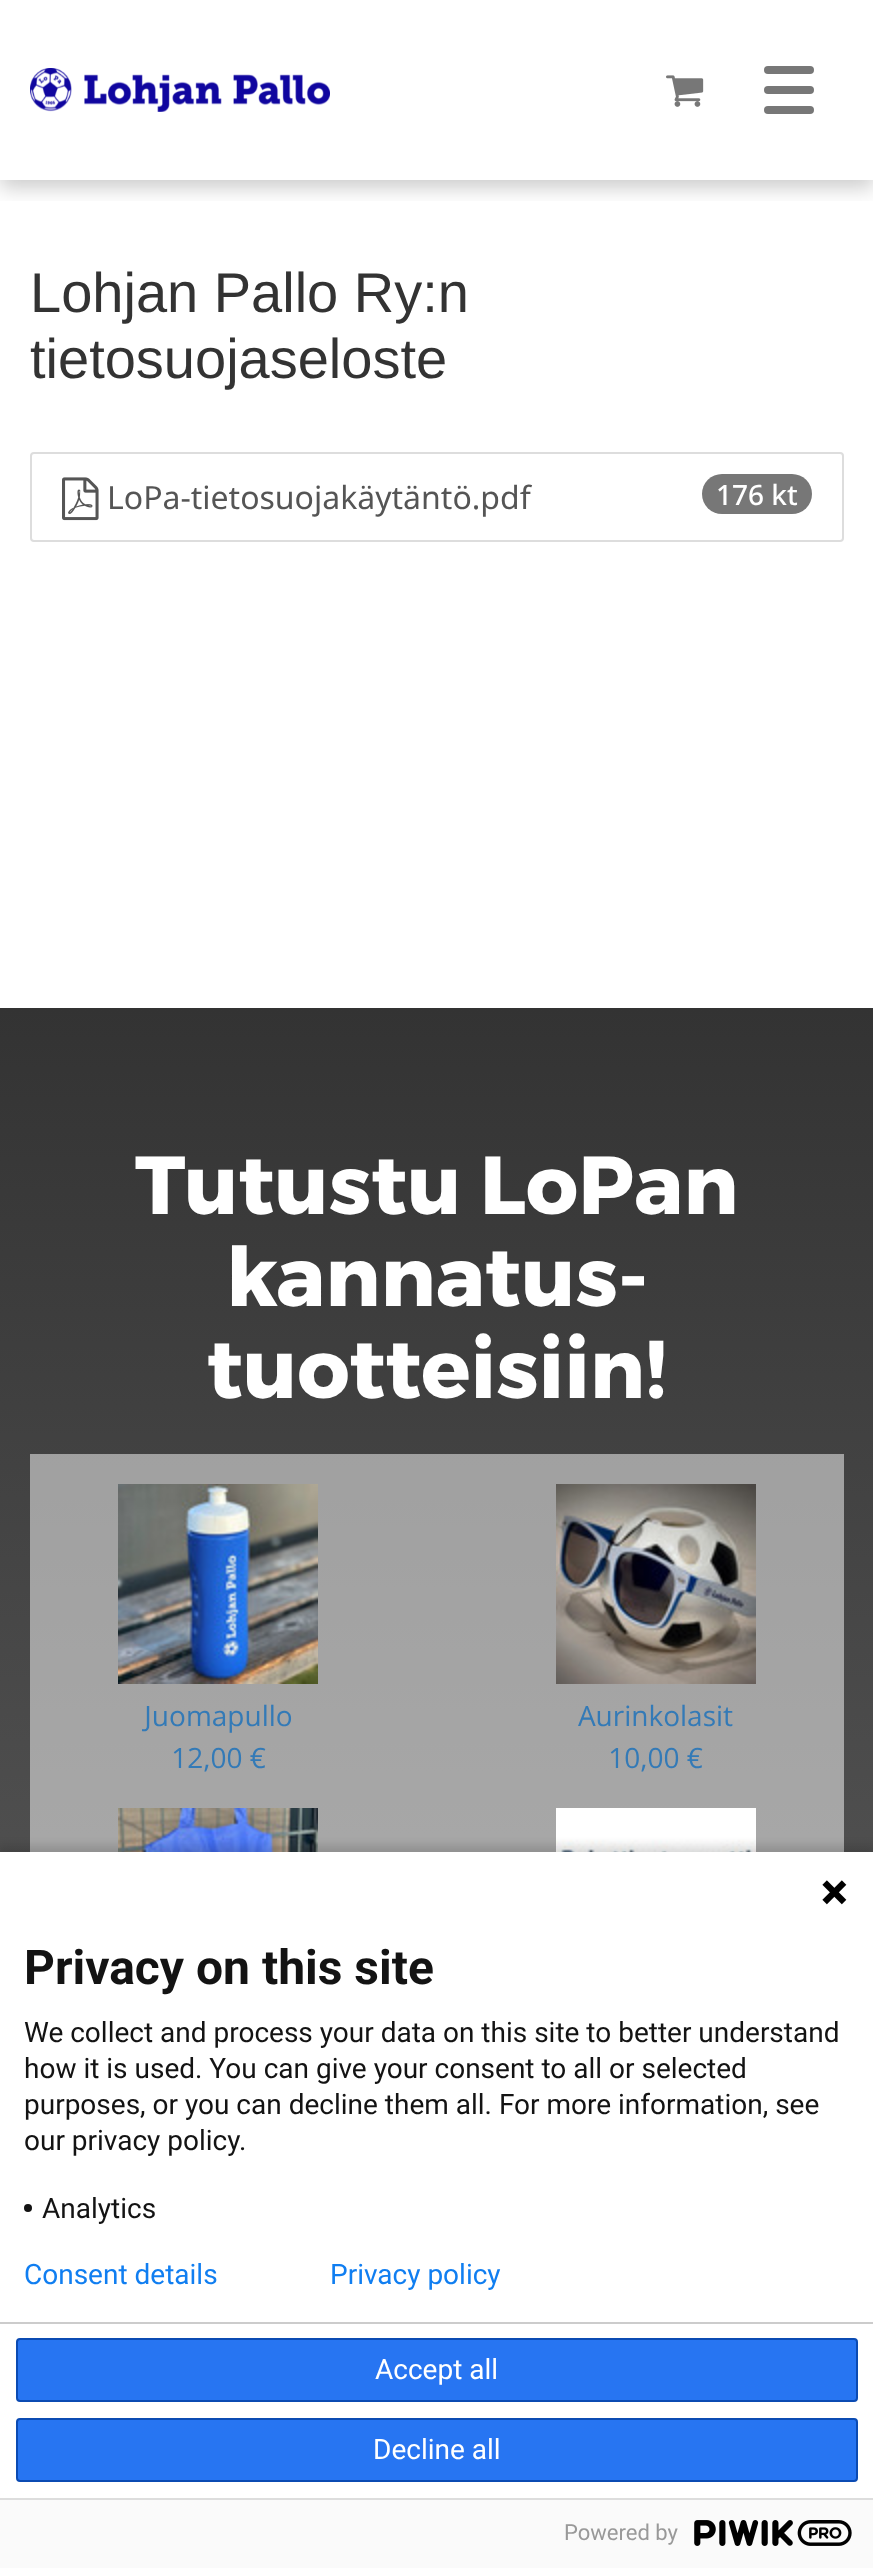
<!DOCTYPE html>
<meta charset="utf-8">
<style>body { margin: 0 } canvas { display: block }</style>
<canvas id="canvas" width="873" height="2568"></canvas>
<script type="module">
  const canvas = document.getElementById("canvas");
  const ctx = canvas.getContext("2d");
  ctx.miterLimit = 4;
  ctx.fontKerning = "normal";
  async function loadImage(src) {
    const img = new Image();
    img.src = src;
    await img.decode();
    return img;
  }
  let gradient;

  ctx.fillStyle = "#ffffff";
  ctx.fillRect(0, 0, 873, 2568);
  ctx.save();
  ctx.beginPath();
  ctx.rect(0, 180, 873, 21);
  ctx.clip();
  ctx.fillStyle = "rgba(0, 0, 0, 0.2)";
  ctx.filter = "blur(10px)";
  ctx.beginPath();
  ctx.rect(0, 8, 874, 180);
  ctx.fill();
  ctx.filter = "none";
  ctx.restore();
  ctx.drawImage(await loadImage("img1.png"), 30, 68, 300, 44);
  ctx.drawImage(await loadImage("img2.png"), 666, 75, 38, 32);
  ctx.fillStyle = "#777777";
  ctx.beginPath();
  ctx.roundRect(764, 86, 50, 8, 4);
  ctx.fill();
  ctx.beginPath();
  ctx.roundRect(764, 66, 50, 8, 4);
  ctx.fill();
  ctx.beginPath();
  ctx.roundRect(764, 106, 50, 8, 4);
  ctx.fill();
  ctx.font = "56px Liberation Sans";
  ctx.fillStyle = "#333333";
  ctx.fillText("Lohjan Pallo Ry:n", 30, 312);
  ctx.fillText("tietosuojaseloste", 30, 378);
  ctx.beginPath();
  ctx.roundRect(31, 453, 812, 88, 3);
  ctx.strokeStyle = "#dddddd";
  ctx.lineWidth = 2;
  ctx.stroke();
  ctx.drawImage(await loadImage("img3.png"), 62, 477, 37, 44);
  ctx.font = "32px Noto Sans";
  ctx.fillStyle = "#555555";
  ctx.fillText("LoPa-tietosuojakäytäntö.pdf", 107, 509);
  ctx.fillStyle = "#777777";
  ctx.beginPath();
  ctx.roundRect(702, 474, 110, 40, 20);
  ctx.fill();
  ctx.font = "500 28px Noto Sans";
  ctx.fillStyle = "#ffffff";
  ctx.fillText("176 kt", 716, 505);
  gradient = ctx.createLinearGradient(437, 1008, 437, 2568);
  gradient.addColorStop(0, "#333333");
  gradient.addColorStop(1, "#666666");
  ctx.fillStyle = gradient;
  ctx.fillRect(0, 1008, 873, 844);
  ctx.font = "bold 82px Montserrat";
  ctx.fillStyle = "#ffffff";
  ctx.fillText("Tutustu LoPan", 135, 1214);
  ctx.fillText("kannatus-", 226, 1306);
  ctx.fillText("tuotteisiin!", 207, 1398);
  ctx.drawImage(await loadImage("img4.png"), 30, 1454, 814, 398);
  ctx.fillStyle = "rgba(0, 0, 0, 0.14)";
  ctx.filter = "blur(5px)";
  ctx.beginPath();
  ctx.rect(-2, 1846, 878, 720);
  ctx.fill();
  ctx.filter = "none";
  ctx.fillStyle = "#ffffff";
  ctx.fillRect(0, 1852, 873, 646);
  ctx.drawImage(await loadImage("img5.png"), 822, 1880, 25, 25);
  ctx.font = "bold 48px Roboto";
  ctx.fillStyle = "#131313";
  ctx.fillText("Privacy on this site", 24, 1984);
  ctx.font = "28px Roboto";
  ctx.fillText("We collect and process your data on this site to better understand", 24, 2042);
  ctx.fillText("how it is used. You can give your consent to all or selected", 24, 2078);
  ctx.fillText("purposes, or you can decline them all. For more information, see", 24, 2114);
  ctx.fillText("our privacy policy.", 24, 2150);
  ctx.beginPath();
  ctx.arc(28, 2208, 4, 0, Math.PI * 2);
  ctx.fill();
  ctx.fillText("Analytics", 42, 2218);
  ctx.fillStyle = "#cccccc";
  ctx.fillRect(0, 2322, 873, 2);
  ctx.fillStyle = "#2775f2";
  ctx.beginPath();
  ctx.roundRect(17, 2339, 840, 62, 3);
  ctx.fill();
  ctx.strokeStyle = "#0b4bb3";
  ctx.stroke();
  ctx.fillStyle = "#ffffff";
  ctx.fillText("Accept all", 375, 2379);
  ctx.fillStyle = "#2775f2";
  ctx.beginPath();
  ctx.roundRect(17, 2419, 840, 62, 3);
  ctx.fill();
  ctx.stroke();
  ctx.fillStyle = "#ffffff";
  ctx.fillText("Decline all", 373, 2459);
  ctx.fillStyle = "#107ef1";
  ctx.fillText("Consent details", 24, 2284);
  ctx.fillText("Privacy policy", 330, 2284);
  ctx.fillStyle = "#fafafa";
  ctx.fillRect(0, 2500, 873, 68);
  ctx.fillStyle = "#dddddd";
  ctx.fillRect(0, 2498, 873, 2);
  ctx.font = "22px Roboto";
  ctx.fillStyle = "#999999";
  ctx.fillText("Powered by", 564, 2540);
  ctx.drawImage(await loadImage("img6.png"), 694, 2520, 158, 26);
</script>
